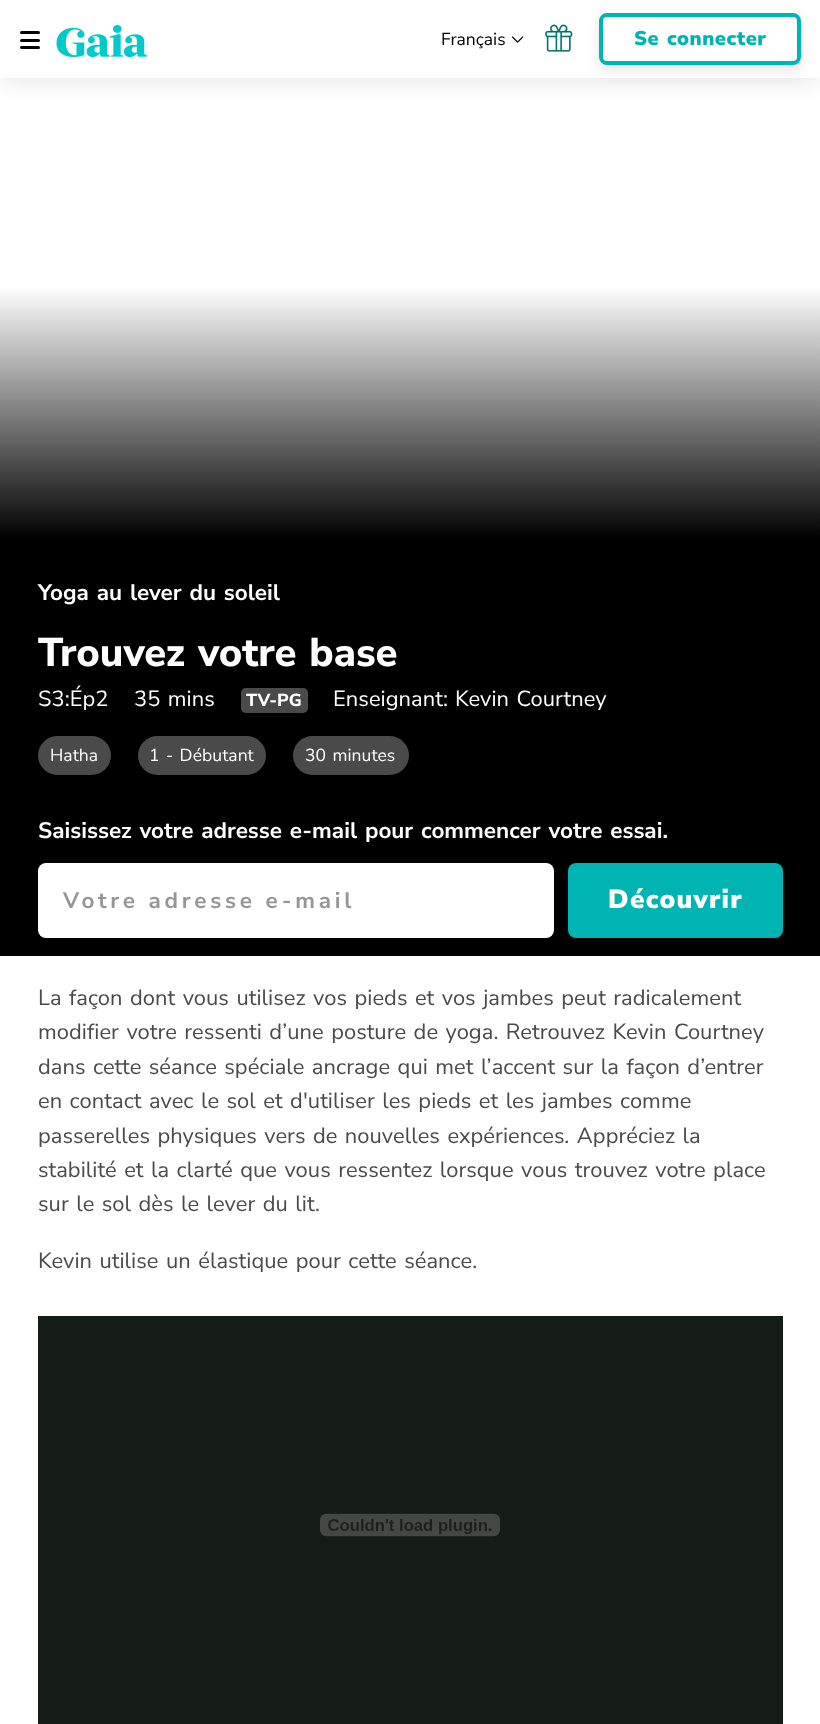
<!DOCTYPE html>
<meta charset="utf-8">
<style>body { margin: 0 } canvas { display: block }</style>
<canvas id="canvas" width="820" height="1724"></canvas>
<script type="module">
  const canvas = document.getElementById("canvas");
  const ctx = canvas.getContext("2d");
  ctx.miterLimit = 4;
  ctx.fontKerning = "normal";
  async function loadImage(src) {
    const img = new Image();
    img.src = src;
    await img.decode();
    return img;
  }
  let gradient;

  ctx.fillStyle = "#ffffff";
  ctx.fillRect(0, 0, 820, 1724);
  ctx.fillStyle = "rgba(0, 0, 0, 0.1)";
  ctx.filter = "blur(11px)";
  ctx.beginPath();
  ctx.rect(0, 4, 820, 77);
  ctx.fill();
  ctx.filter = "none";
  ctx.fillStyle = "#ffffff";
  ctx.fillRect(0, 0, 820, 78);
  ctx.fillStyle = "#000000";
  ctx.beginPath();
  ctx.roundRect(20, 31, 20, 3, 1.5);
  ctx.fill();
  ctx.beginPath();
  ctx.roundRect(20, 39, 20, 3, 1.5);
  ctx.fill();
  ctx.beginPath();
  ctx.roundRect(20, 46, 20, 3, 1.5);
  ctx.fill();
  ctx.drawImage(await loadImage("img1.png"), 56, 25, 91, 33);
  ctx.font = "17.5px Nunito Sans";
  ctx.fillText("Français", 441, 45);
  ctx.drawImage(await loadImage("img2.png"), 511, 36, 13, 7);
  ctx.drawImage(await loadImage("img3.png"), 545, 24, 28, 28);
  ctx.save();
  ctx.beginPath();
  ctx.moveTo(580, 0);
  ctx.lineTo(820, 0);
  ctx.lineTo(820, 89);
  ctx.lineTo(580, 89);
  ctx.closePath();
  ctx.moveTo(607, 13);
  ctx.lineTo(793, 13);
  ctx.bezierCurveTo(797.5, 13, 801, 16.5, 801, 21);
  ctx.lineTo(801, 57);
  ctx.bezierCurveTo(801, 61.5, 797.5, 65, 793, 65);
  ctx.lineTo(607, 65);
  ctx.bezierCurveTo(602.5, 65, 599, 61.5, 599, 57);
  ctx.lineTo(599, 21);
  ctx.bezierCurveTo(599, 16.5, 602.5, 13, 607, 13);
  ctx.closePath();
  ctx.clip("evenodd");
  ctx.fillStyle = "rgba(0, 0, 0, 0.1)";
  ctx.filter = "blur(6px)";
  ctx.beginPath();
  ctx.roundRect(599, 18, 202, 52, 8);
  ctx.fill();
  ctx.filter = "none";
  ctx.restore();
  ctx.beginPath();
  ctx.roundRect(601, 15, 198, 48, 6);
  ctx.strokeStyle = "#01b4b4";
  ctx.lineWidth = 4;
  ctx.stroke();
  ctx.letterSpacing = "0.5px";
  ctx.wordSpacing = "1.75px";
  ctx.font = "900 20px Nunito Sans";
  ctx.fillStyle = "#01b4b4";
  ctx.fillText("Se connecter", 634, 45);
  gradient = ctx.createLinearGradient(410, 539, 410, 78);
  gradient.addColorStop(0, "#000000");
  gradient.addColorStop(0.55, "#ffffff");
  ctx.fillStyle = gradient;
  ctx.fillRect(0, 288, 820, 251);
  ctx.fillStyle = "#000000";
  ctx.fillRect(0, 539, 820, 417);
  ctx.letterSpacing = "0px";
  ctx.font = "bold 22.5px Nunito Sans";
  ctx.fillStyle = "#ffffff";
  ctx.fillText("Yoga au lever du soleil", 38, 600);
  ctx.font = "800 40px Nunito Sans";
  ctx.fillText("Trouvez votre base", 38, 666);
  ctx.letterSpacing = "0.05px";
  ctx.wordSpacing = "0px";
  ctx.font = "21.9px Nunito Sans";
  ctx.fillText("S3:Ép2", 38, 706);
  ctx.wordSpacing = "1.75px";
  ctx.fillText("35 mins", 134, 706);
  ctx.fillStyle = "#4a4a4a";
  ctx.beginPath();
  ctx.roundRect(241, 688, 67, 25, 5);
  ctx.fill();
  ctx.wordSpacing = "0px";
  ctx.font = "800 17.5px Nunito Sans";
  ctx.fillStyle = "#ffffff";
  ctx.fillText("TV-PG", 246, 706);
  ctx.font = "21.9px Nunito Sans";
  ctx.fillText("Enseignant:", 333, 706);
  ctx.wordSpacing = "1.75px";
  ctx.fillText("Kevin Courtney", 455, 706);
  ctx.fillStyle = "#4a4a4a";
  ctx.beginPath();
  ctx.roundRect(38, 736, 73, 39, 19.5);
  ctx.fill();
  ctx.wordSpacing = "0px";
  ctx.font = "17.5px Nunito Sans";
  ctx.fillStyle = "#ffffff";
  ctx.fillText("Hatha", 50, 761);
  ctx.fillStyle = "#4a4a4a";
  ctx.beginPath();
  ctx.roundRect(138, 736, 128, 39, 19.5);
  ctx.fill();
  ctx.wordSpacing = "1.75px";
  ctx.fillStyle = "#ffffff";
  ctx.fillText("1 - Débutant", 149, 761);
  ctx.fillStyle = "#4a4a4a";
  ctx.beginPath();
  ctx.roundRect(293, 736, 116, 39, 19.5);
  ctx.fill();
  ctx.fillStyle = "#ffffff";
  ctx.fillText("30 minutes", 305, 761);
  ctx.letterSpacing = "0px";
  ctx.font = "bold 22.5px Nunito Sans";
  ctx.fillText("Saisissez votre adresse e-mail pour commencer votre essai.", 38, 838);
  ctx.beginPath();
  ctx.roundRect(38, 863, 516, 75, 8);
  ctx.fill();
  ctx.letterSpacing = "3.75px";
  ctx.wordSpacing = "0px";
  ctx.fillStyle = "#989595";
  ctx.fillText("Votre adresse e-mail", 63, 908);
  ctx.fillStyle = "#01b4b4";
  ctx.beginPath();
  ctx.roundRect(568, 863, 215, 75, 8);
  ctx.fill();
  ctx.letterSpacing = "1.25px";
  ctx.font = "900 26.25px Nunito Sans";
  ctx.fillStyle = "#ffffff";
  ctx.fillText("Découvrir", 608, 908);
  ctx.letterSpacing = "0.05px";
  ctx.wordSpacing = "1.75px";
  ctx.font = "21.9px Nunito Sans";
  ctx.fillStyle = "#4a4a4a";
  ctx.fillText("La façon dont vous utilisez vos pieds et vos jambes peut radicalement", 38, 1005);
  ctx.fillText("modifier votre ressenti d’une posture de yoga. Retrouvez Kevin Courtney", 38, 1039);
  ctx.fillText("dans cette séance spéciale ancrage qui met l’accent sur la façon d’entrer", 38, 1074);
  ctx.fillText("en contact avec le sol et d'utiliser les pieds et les jambes comme", 38, 1108);
  ctx.fillText("passerelles physiques vers de nouvelles expériences. Appréciez la", 38, 1143);
  ctx.fillText("stabilité et la clarté que vous ressentez lorsque vous trouvez votre place", 38, 1177);
  ctx.fillText("sur le sol dès le lever du lit.", 38, 1211);
  ctx.fillText("Kevin utilise un élastique pour cette séance.", 38, 1268);
  ctx.fillStyle = "#151b17";
  ctx.fillRect(38, 1316, 745, 408);
  ctx.drawImage(await loadImage("img4.png"), 320, 1513, 180, 24);
</script>
